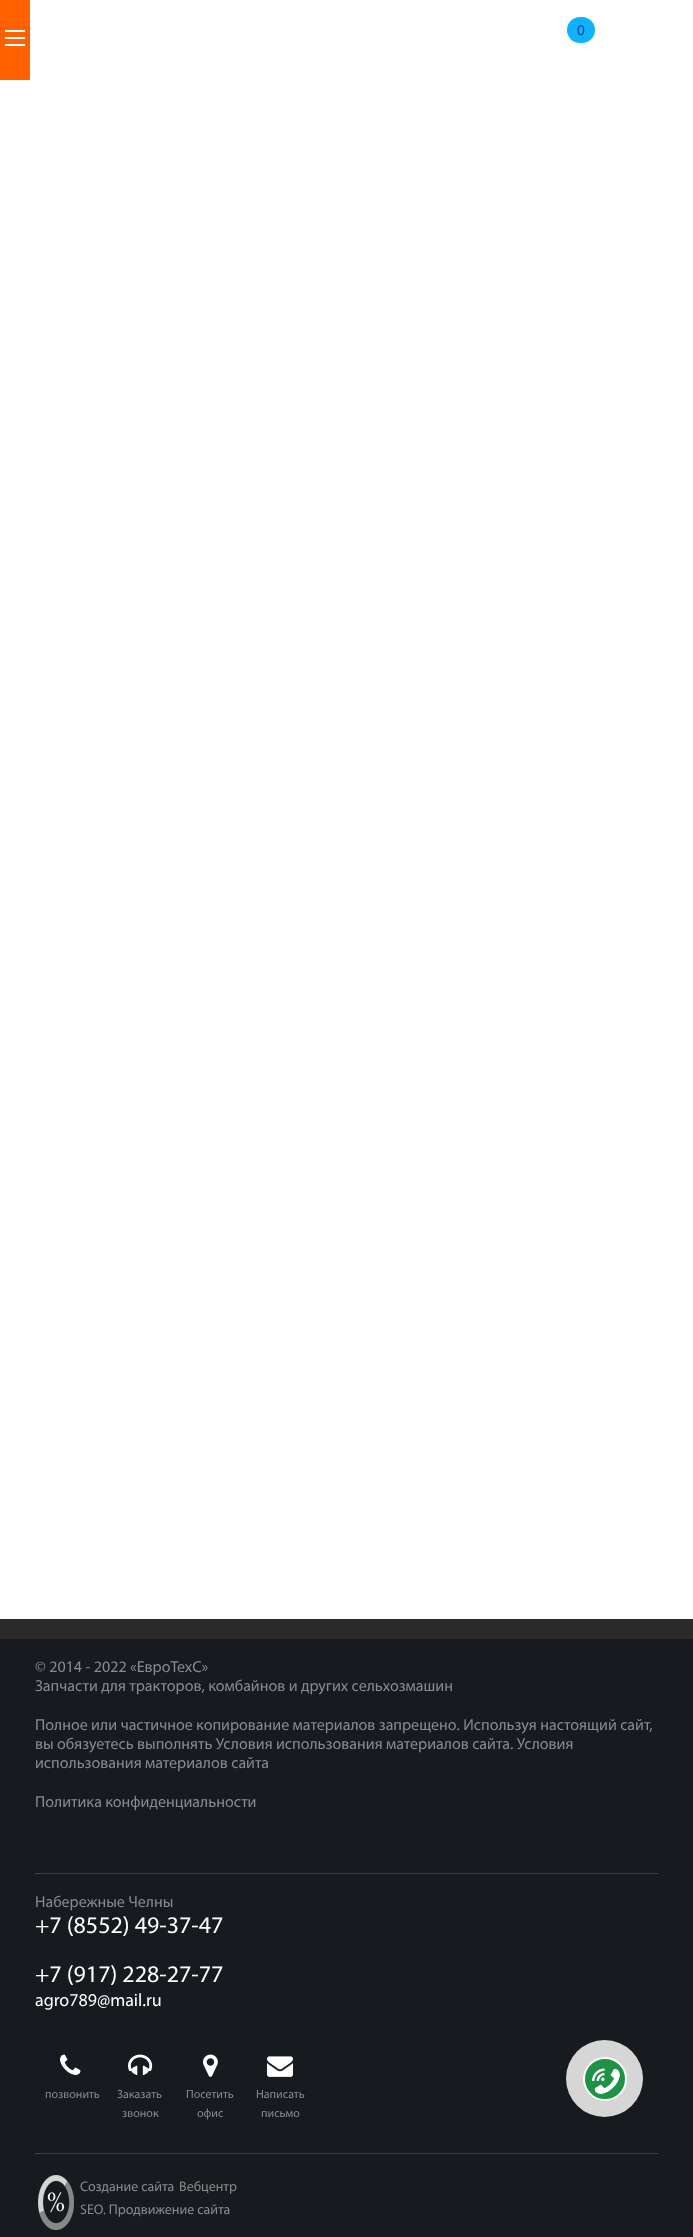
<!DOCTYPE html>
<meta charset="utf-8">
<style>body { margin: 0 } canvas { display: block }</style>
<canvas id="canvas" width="693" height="2237"></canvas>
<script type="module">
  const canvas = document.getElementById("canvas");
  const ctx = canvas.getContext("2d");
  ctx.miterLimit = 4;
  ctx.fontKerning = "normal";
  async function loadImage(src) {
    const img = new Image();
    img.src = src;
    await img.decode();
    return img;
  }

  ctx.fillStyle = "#ffffff";
  ctx.fillRect(0, 0, 693, 2237);
  ctx.fillStyle = "#ff6000";
  ctx.fillRect(0, 0, 30, 80);
  ctx.fillStyle = "#ffffff";
  ctx.fillRect(5, 30, 20, 2);
  ctx.fillRect(5, 37, 20, 2);
  ctx.fillRect(5, 44, 20, 2);
  ctx.fillStyle = "#0eb2fe";
  ctx.beginPath();
  ctx.roundRect(567, 17, 28, 26, 13);
  ctx.fill();
  ctx.font = "14px Liberation Sans";
  ctx.fillStyle = "#043c84";
  ctx.fillText("0", 577, 35);
  ctx.fillStyle = "#2b2a28";
  ctx.fillRect(0, 1619, 693, 20);
  ctx.fillStyle = "#171a1e";
  ctx.fillRect(0, 1639, 693, 598);
  ctx.font = "16px Myriad";
  ctx.fillStyle = "#878b90";
  ctx.fillText("© 2014 - 2022 «ЕвроТехС»", 35, 1672);
  ctx.fillText("Запчасти для тракторов, комбайнов и других сельхозмашин", 35, 1691);
  ctx.fillText("Полное или частичное копирование материалов запрещено. Используя настоящий сайт,", 35, 1730);
  ctx.fillText("вы обязуетесь выполнять Условия использования материалов сайта. Условия", 35, 1749);
  ctx.fillText("использования материалов сайта", 35, 1768);
  ctx.fillText("Политика конфиденциальности", 35, 1807);
  ctx.fillStyle = "#393c40";
  ctx.fillRect(35, 1873, 623, 1);
  ctx.fillStyle = "#878b90";
  ctx.fillText("Набережные Челны", 35, 1907);
  ctx.font = "24px Myriad";
  ctx.fillStyle = "#ffffff";
  ctx.fillText("+7 (8552) 49-37-47", 35, 1933);
  ctx.fillText("+7 (917) 228-27-77", 35, 1982);
  ctx.font = "18px Myriad";
  ctx.fillText("agro789@mail.ru", 35, 2006);
  ctx.drawImage(await loadImage("img1.png"), 60, 2054, 21, 21);
  ctx.font = "12px Myriad";
  ctx.fillStyle = "#878b90";
  ctx.fillText("позвонить", 45, 2098);
  ctx.drawImage(await loadImage("img2.png"), 128, 2054, 25, 21);
  ctx.fillText("Заказать", 117, 2098);
  ctx.fillText("звонок", 122, 2117);
  ctx.drawImage(await loadImage("img3.png"), 203, 2054, 15, 23);
  ctx.fillText("Посетить", 186, 2098);
  ctx.fillText("офис", 197, 2117);
  ctx.drawImage(await loadImage("img4.png"), 267, 2056, 26, 21);
  ctx.fillText("Написать", 256, 2098);
  ctx.fillText("письмо", 261, 2117);
  ctx.fillStyle = "#393c40";
  ctx.fillRect(35, 2153, 623, 1);
  ctx.drawImage(await loadImage("img5.png"), 38, 2175, 36, 55);
  ctx.font = "14px Myriad";
  ctx.fillStyle = "#878b90";
  ctx.fillText("Создание сайта", 80, 2191);
  ctx.fillStyle = "#888888";
  ctx.fillText("Вебцентр", 179, 2191);
  ctx.fillStyle = "#878b90";
  ctx.fillText("SEO. Продвижение сайта", 80, 2214);
  ctx.fillStyle = "#d6d6d6";
  ctx.beginPath();
  ctx.arc(604.5, 2078.5, 38.5, 0, Math.PI * 2);
  ctx.fill();
  ctx.fillStyle = "#1d9346";
  ctx.beginPath();
  ctx.arc(605, 2079, 21, 0, Math.PI * 2);
  ctx.fill();
  ctx.strokeStyle = "#ffffff";
  ctx.lineWidth = 2;
  ctx.stroke();
  ctx.drawImage(await loadImage("img6.png"), 592, 2068, 13, 13);
  ctx.drawImage(await loadImage("img7.png"), 594, 2068, 26, 26);
</script>
